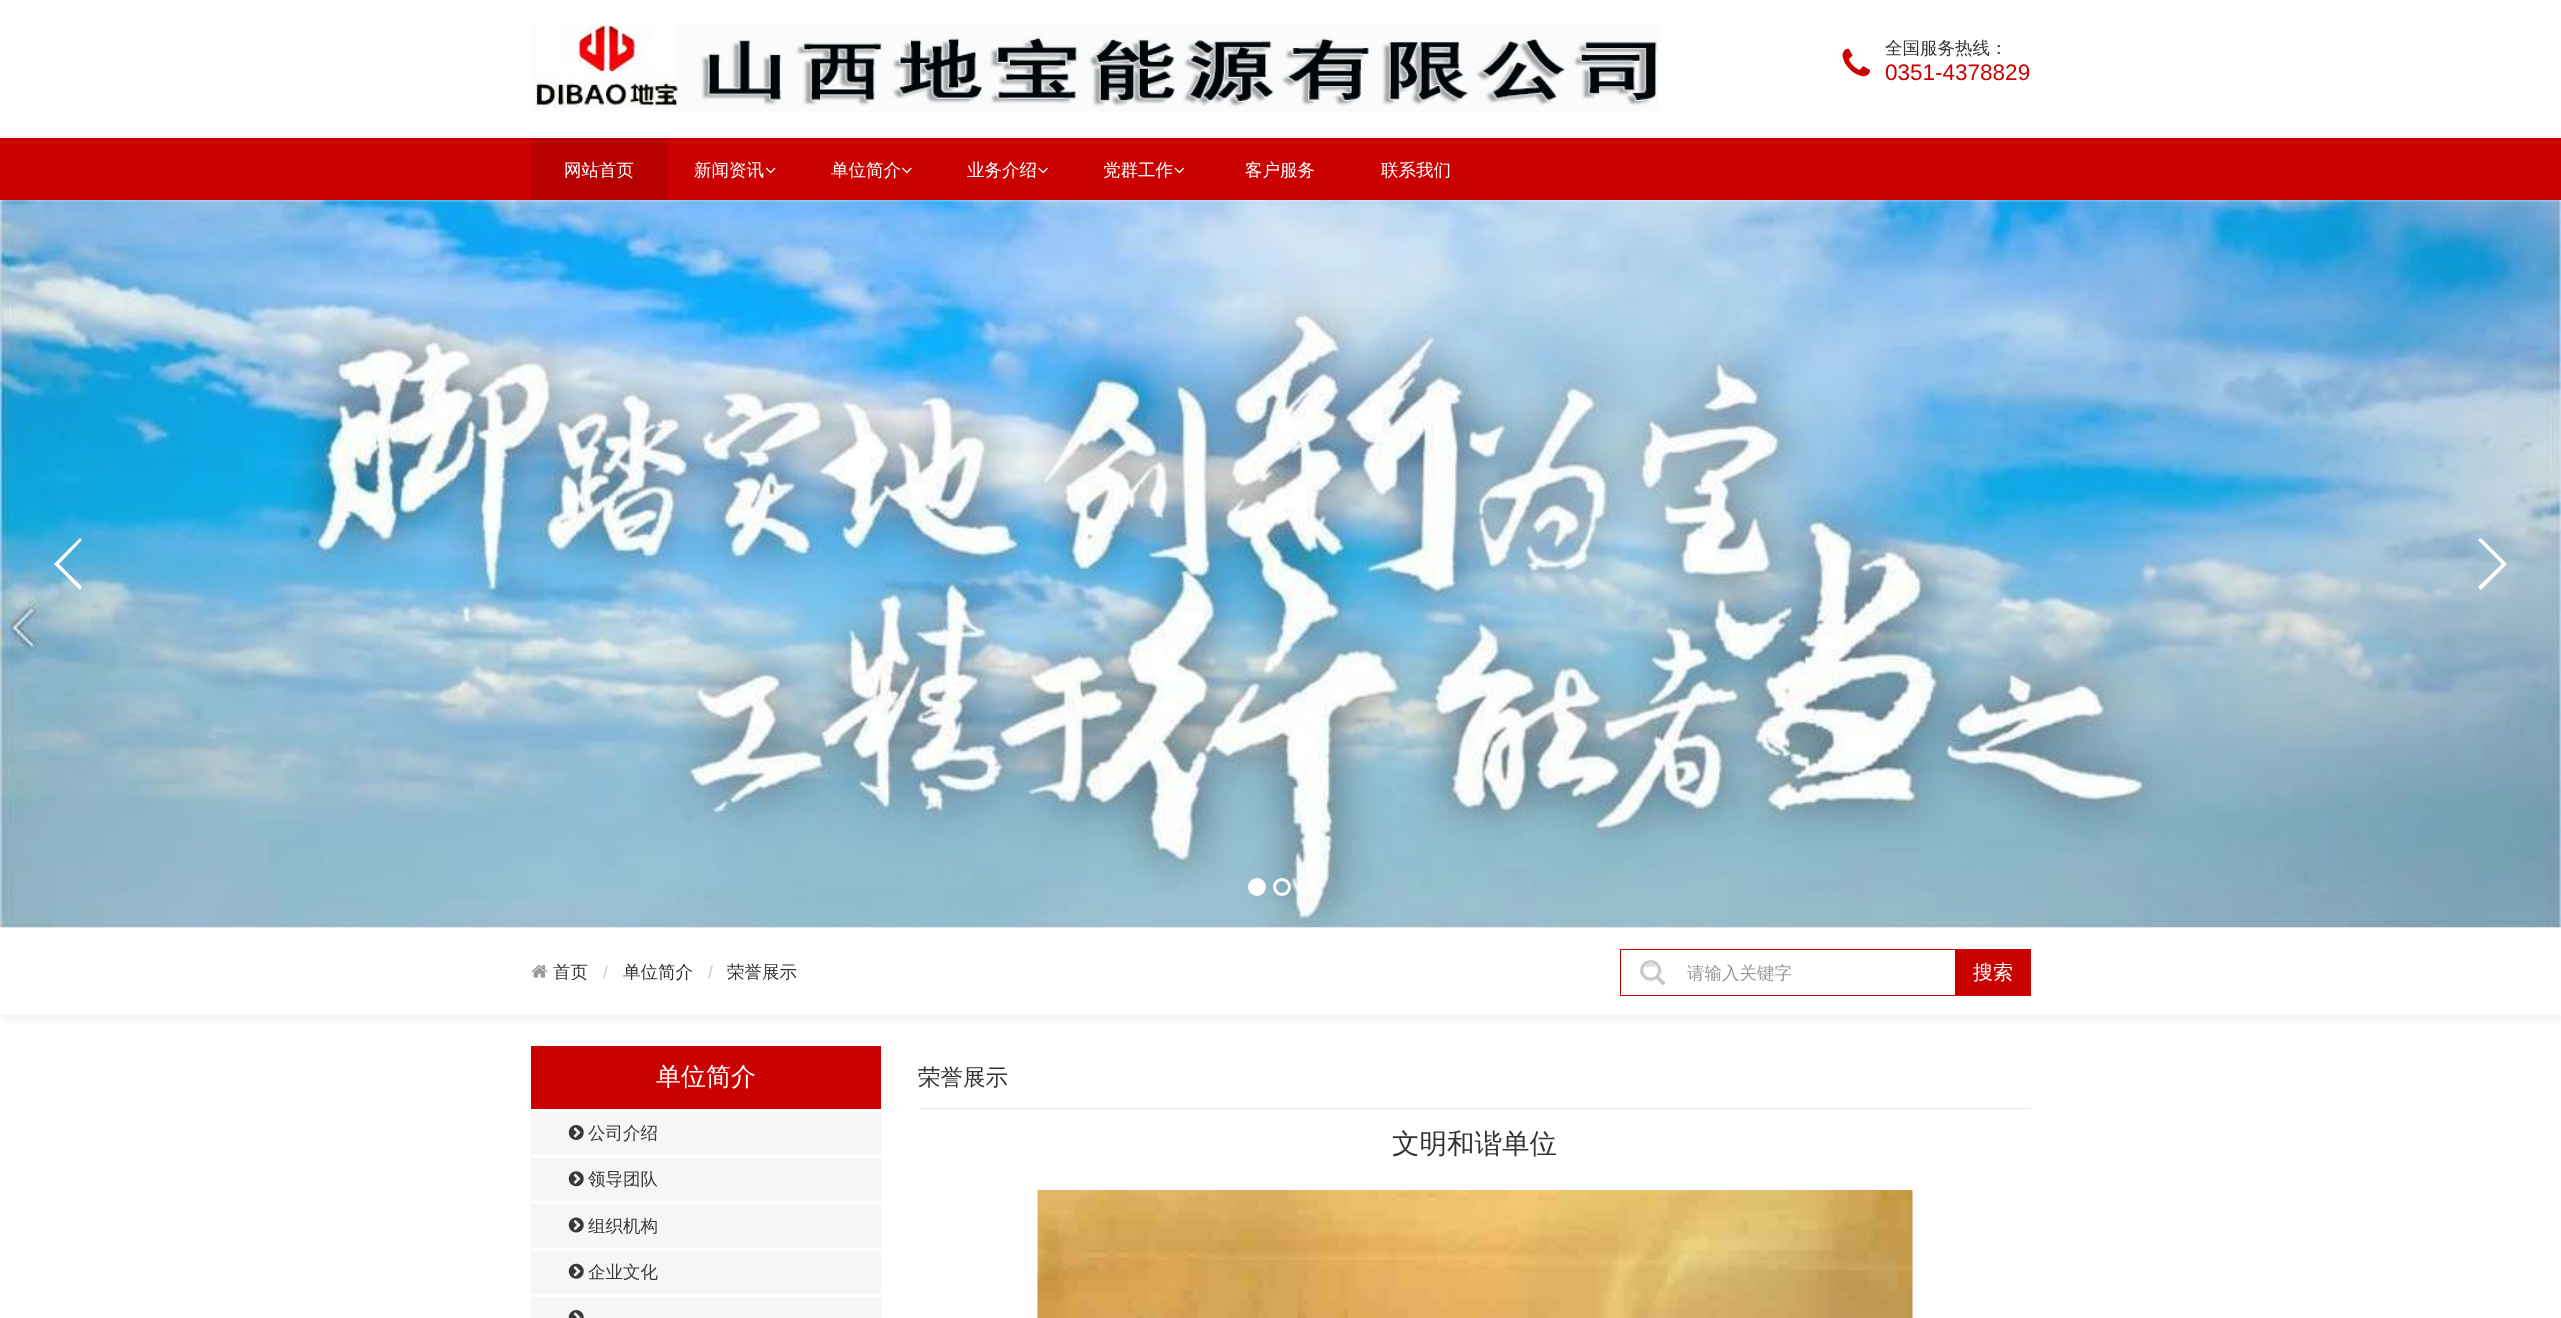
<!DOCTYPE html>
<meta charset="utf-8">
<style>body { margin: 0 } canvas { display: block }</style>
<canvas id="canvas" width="2561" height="1318"></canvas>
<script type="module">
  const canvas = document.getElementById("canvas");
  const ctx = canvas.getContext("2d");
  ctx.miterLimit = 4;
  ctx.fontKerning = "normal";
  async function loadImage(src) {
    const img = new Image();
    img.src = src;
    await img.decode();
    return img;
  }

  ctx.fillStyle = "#ffffff";
  ctx.fillRect(0, 0, 2561, 1318);
  ctx.fillStyle = "#efefef";
  ctx.fillRect(0, 136, 2561, 1);
  ctx.drawImage(await loadImage("img1.png"), 531, 25, 1128, 87);
  ctx.drawImage(await loadImage("img2.png"), 1842, 48, 28, 29);
  ctx.font = "500 17.5px WenQuanYi Zen Hei";
  ctx.fillStyle = "#333333";
  ctx.fillText("全国服务热线：", 1885, 54);
  ctx.font = "22.5px Liberation Sans";
  ctx.fillStyle = "#cb0000";
  ctx.fillText("0351-4378829", 1885, 80);
  ctx.fillRect(0, 138, 2561, 62);
  ctx.fillStyle = "#b70000";
  ctx.fillRect(531, 138, 137, 62);
  ctx.font = "500 17.5px WenQuanYi Zen Hei";
  ctx.fillStyle = "#ffffff";
  ctx.fillText("网站首页", 564, 176);
  ctx.fillText("新闻资讯", 694, 176);
  ctx.drawImage(await loadImage("img3.png"), 765, 167, 11, 7);
  ctx.fillText("单位简介", 831, 176);
  ctx.drawImage(await loadImage("img4.png"), 902, 167, 10, 7);
  ctx.fillText("业务介绍", 967, 176);
  ctx.drawImage(await loadImage("img5.png"), 1038, 167, 10, 7);
  ctx.fillText("党群工作", 1103, 176);
  ctx.drawImage(await loadImage("img6.png"), 1174, 167, 11, 7);
  ctx.fillText("客户服务", 1245, 176);
  ctx.fillText("联系我们", 1381, 176);
  ctx.save();
  ctx.beginPath();
  ctx.rect(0, 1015, 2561, 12);
  ctx.clip();
  ctx.fillStyle = "#f4f4f4";
  ctx.filter = "blur(3px)";
  ctx.beginPath();
  ctx.rect(0, 934, 2561, 87);
  ctx.fill();
  ctx.filter = "none";
  ctx.restore();
  ctx.drawImage(await loadImage("img7.png"), 0, 200, 2561, 728);
  ctx.beginPath();
  ctx.moveTo(54, 564);
  ctx.lineTo(80, 538);
  ctx.lineTo(82, 540);
  ctx.lineTo(59, 564);
  ctx.lineTo(82, 587);
  ctx.lineTo(80, 590);
  ctx.closePath();
  ctx.fill();
  ctx.beginPath();
  ctx.moveTo(2507, 564);
  ctx.lineTo(2481, 590);
  ctx.lineTo(2478, 587);
  ctx.lineTo(2502, 564);
  ctx.lineTo(2478, 540);
  ctx.lineTo(2481, 538);
  ctx.closePath();
  ctx.fill();
  ctx.beginPath();
  ctx.arc(1257, 887, 7.5, 0, Math.PI * 2);
  ctx.fill();
  ctx.strokeStyle = "#ffffff";
  ctx.lineWidth = 3;
  ctx.stroke();
  ctx.beginPath();
  ctx.arc(1282, 887, 7.5, 0, Math.PI * 2);
  ctx.stroke();
  ctx.beginPath();
  ctx.arc(1307, 887, 7.5, 0, Math.PI * 2);
  ctx.stroke();
  ctx.drawImage(await loadImage("img8.png"), 531, 965, 17, 13);
  ctx.fillStyle = "#333333";
  ctx.fillText("首页", 553, 978);
  ctx.font = "17.5px Liberation Sans";
  ctx.fillStyle = "#cccccc";
  ctx.fillText("/", 603, 978);
  ctx.font = "500 17.5px WenQuanYi Zen Hei";
  ctx.fillStyle = "#333333";
  ctx.fillText("单位简介", 623, 978);
  ctx.font = "17.5px Liberation Sans";
  ctx.fillStyle = "#cccccc";
  ctx.fillText("/", 708, 978);
  ctx.font = "500 17.5px WenQuanYi Zen Hei";
  ctx.fillStyle = "#333333";
  ctx.fillText("荣誉展示", 727, 978);
  ctx.drawImage(await loadImage("img9.png"), 1640, 960, 25, 25);
  ctx.fillStyle = "#cb0000";
  ctx.fillRect(1620, 949, 335, 1);
  ctx.fillRect(1620, 995, 335, 1);
  ctx.fillRect(1620, 949, 1, 47);
  ctx.fillStyle = "#999999";
  ctx.fillText("请输入关键字", 1687, 979);
  ctx.fillStyle = "#cb0000";
  ctx.fillRect(1955, 949, 76, 47);
  ctx.font = "500 20px WenQuanYi Zen Hei";
  ctx.fillStyle = "#ffffff";
  ctx.fillText("搜索", 1973, 979);
  ctx.fillStyle = "#cb0000";
  ctx.fillRect(531, 1046, 350, 63);
  ctx.font = "500 25px WenQuanYi Zen Hei";
  ctx.fillStyle = "#ffffff";
  ctx.fillText("单位简介", 656, 1085);
  ctx.fillStyle = "#f6f6f6";
  ctx.fillRect(531, 1112, 350, 206);
  ctx.drawImage(await loadImage("img10.png"), 568, 1125, 16, 15);
  ctx.font = "500 17.5px WenQuanYi Zen Hei";
  ctx.fillStyle = "#393837";
  ctx.fillText("公司介绍", 588, 1139);
  ctx.fillStyle = "#ffffff";
  ctx.fillRect(531, 1155, 350, 3);
  ctx.drawImage(await loadImage("img11.png"), 568, 1171, 16, 16);
  ctx.fillStyle = "#393837";
  ctx.fillText("领导团队", 588, 1185);
  ctx.fillStyle = "#ffffff";
  ctx.fillRect(531, 1201, 350, 3);
  ctx.drawImage(await loadImage("img12.png"), 568, 1217, 16, 16);
  ctx.fillStyle = "#393837";
  ctx.fillText("组织机构", 588, 1232);
  ctx.fillStyle = "#ffffff";
  ctx.fillRect(531, 1248, 350, 3);
  ctx.drawImage(await loadImage("img13.png"), 568, 1263, 16, 16);
  ctx.fillStyle = "#393837";
  ctx.fillText("企业文化", 588, 1278);
  ctx.fillStyle = "#ffffff";
  ctx.fillRect(531, 1294, 350, 3);
  ctx.drawImage(await loadImage("img14.png"), 568, 1310, 16, 8);
  ctx.fillStyle = "#eaeaea";
  ctx.fillRect(919, 1108, 1112, 1);
  ctx.font = "500 22.5px WenQuanYi Zen Hei";
  ctx.fillStyle = "#333333";
  ctx.fillText("荣誉展示", 918, 1085);
  ctx.font = "500 27.5px WenQuanYi Zen Hei";
  ctx.fillText("文明和谐单位", 1392, 1153);
  ctx.drawImage(await loadImage("img15.png"), 1037, 1190, 876, 128);
</script>
